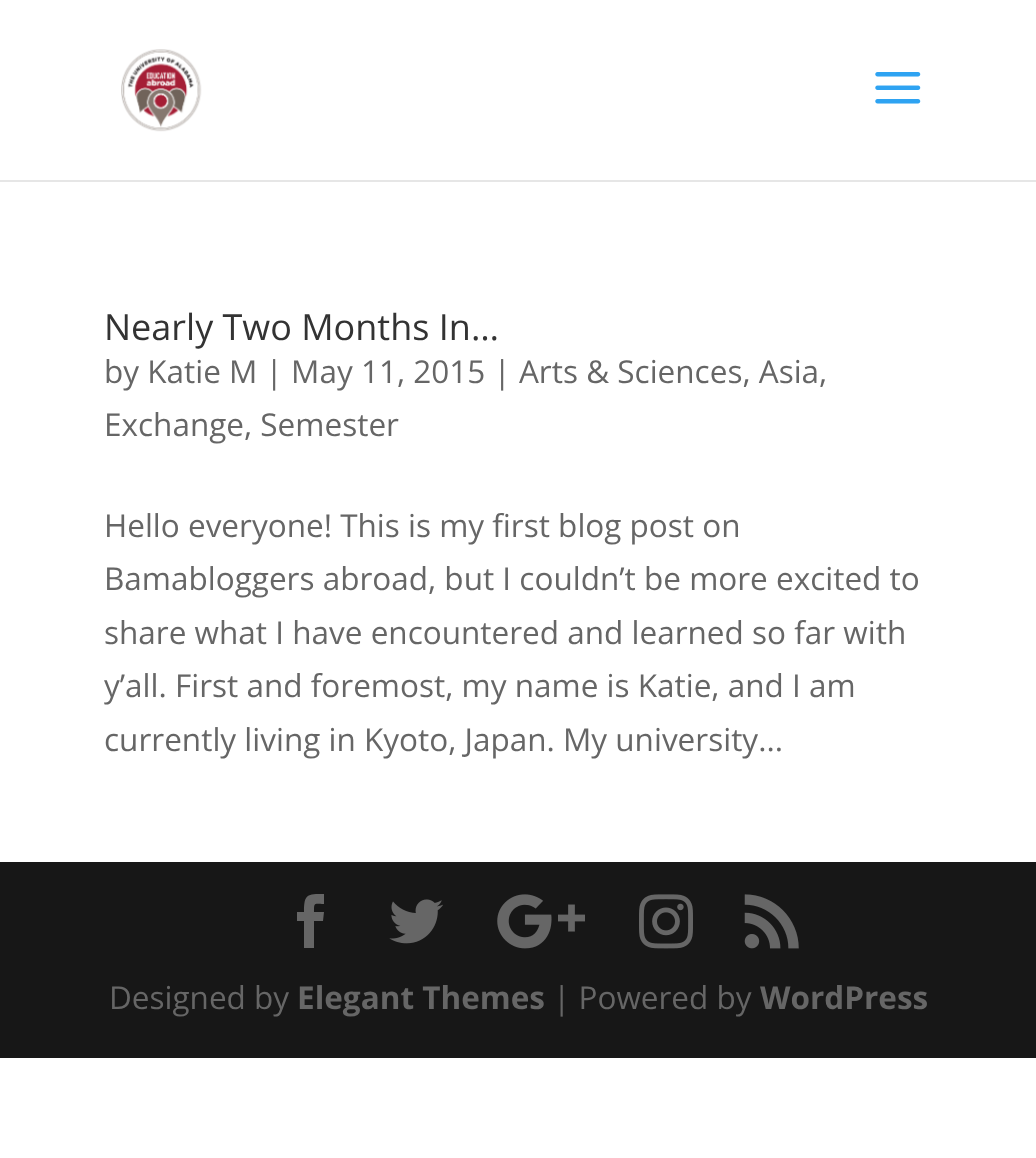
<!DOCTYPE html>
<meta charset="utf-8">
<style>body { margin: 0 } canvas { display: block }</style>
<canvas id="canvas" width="1036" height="1158"></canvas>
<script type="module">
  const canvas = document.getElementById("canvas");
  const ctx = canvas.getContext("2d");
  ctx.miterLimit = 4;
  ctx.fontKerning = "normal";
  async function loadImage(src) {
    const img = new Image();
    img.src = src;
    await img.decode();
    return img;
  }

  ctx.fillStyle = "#ffffff";
  ctx.fillRect(0, 0, 1036, 1158);
  ctx.fillStyle = "#e6e6e6";
  ctx.fillRect(0, 180, 1036, 2);
  ctx.drawImage(await loadImage("img1.png"), 121, 49, 81, 83);
  ctx.drawImage(await loadImage("img2.png"), 875, 72, 46, 32);
  ctx.font = "36px Open Sans";
  ctx.fillStyle = "#333333";
  ctx.fillText("Nearly Two Months In…", 104, 340);
  ctx.font = "31.5px Open Sans";
  ctx.fillStyle = "#666666";
  ctx.fillText("by Katie M | May 11, 2015 | Arts & Sciences, Asia,", 104, 383);
  ctx.fillText("Exchange, Semester", 104, 436);
  ctx.fillText("Hello everyone! This is my first blog post on", 104, 537);
  ctx.fillText("Bamabloggers abroad, but I couldn’t be more excited to", 104, 590);
  ctx.fillText("share what I have encountered and learned so far with", 104, 644);
  ctx.fillText("y’all. First and foremost, my name is Katie, and I am", 104, 697);
  ctx.fillText("currently living in Kyoto, Japan. My university...", 104, 751);
  ctx.fillStyle = "#171717";
  ctx.fillRect(0, 862, 1036, 196);
  ctx.fillStyle = "#666666";
  ctx.beginPath();
  ctx.moveTo(304, 948);
  ctx.lineTo(314, 948);
  ctx.lineTo(314, 921);
  ctx.lineTo(323, 921);
  ctx.lineTo(324, 912);
  ctx.lineTo(314, 912);
  ctx.bezierCurveTo(314, 902, 314, 904, 324, 904);
  ctx.lineTo(324, 894);
  ctx.bezierCurveTo(307, 894, 304, 894, 304, 912);
  ctx.lineTo(297, 912);
  ctx.lineTo(297, 921);
  ctx.lineTo(304, 921);
  ctx.closePath();
  ctx.fill();
  ctx.drawImage(await loadImage("img3.png"), 389, 899, 54, 45);
  ctx.drawImage(await loadImage("img4.png"), 497, 894, 88, 55);
  ctx.drawImage(await loadImage("img5.png"), 639, 894, 54, 55);
  ctx.drawImage(await loadImage("img6.png"), 744, 894, 55, 55);
  ctx.fillText("Designed by", 109, 1009);
  ctx.font = "bold 31.5px Open Sans";
  ctx.fillText("Elegant Themes", 297, 1009);
  ctx.font = "31.5px Open Sans";
  ctx.fillText("| Powered by", 553, 1009);
  ctx.font = "bold 31.5px Open Sans";
  ctx.fillText("WordPress", 760, 1009);
</script>
